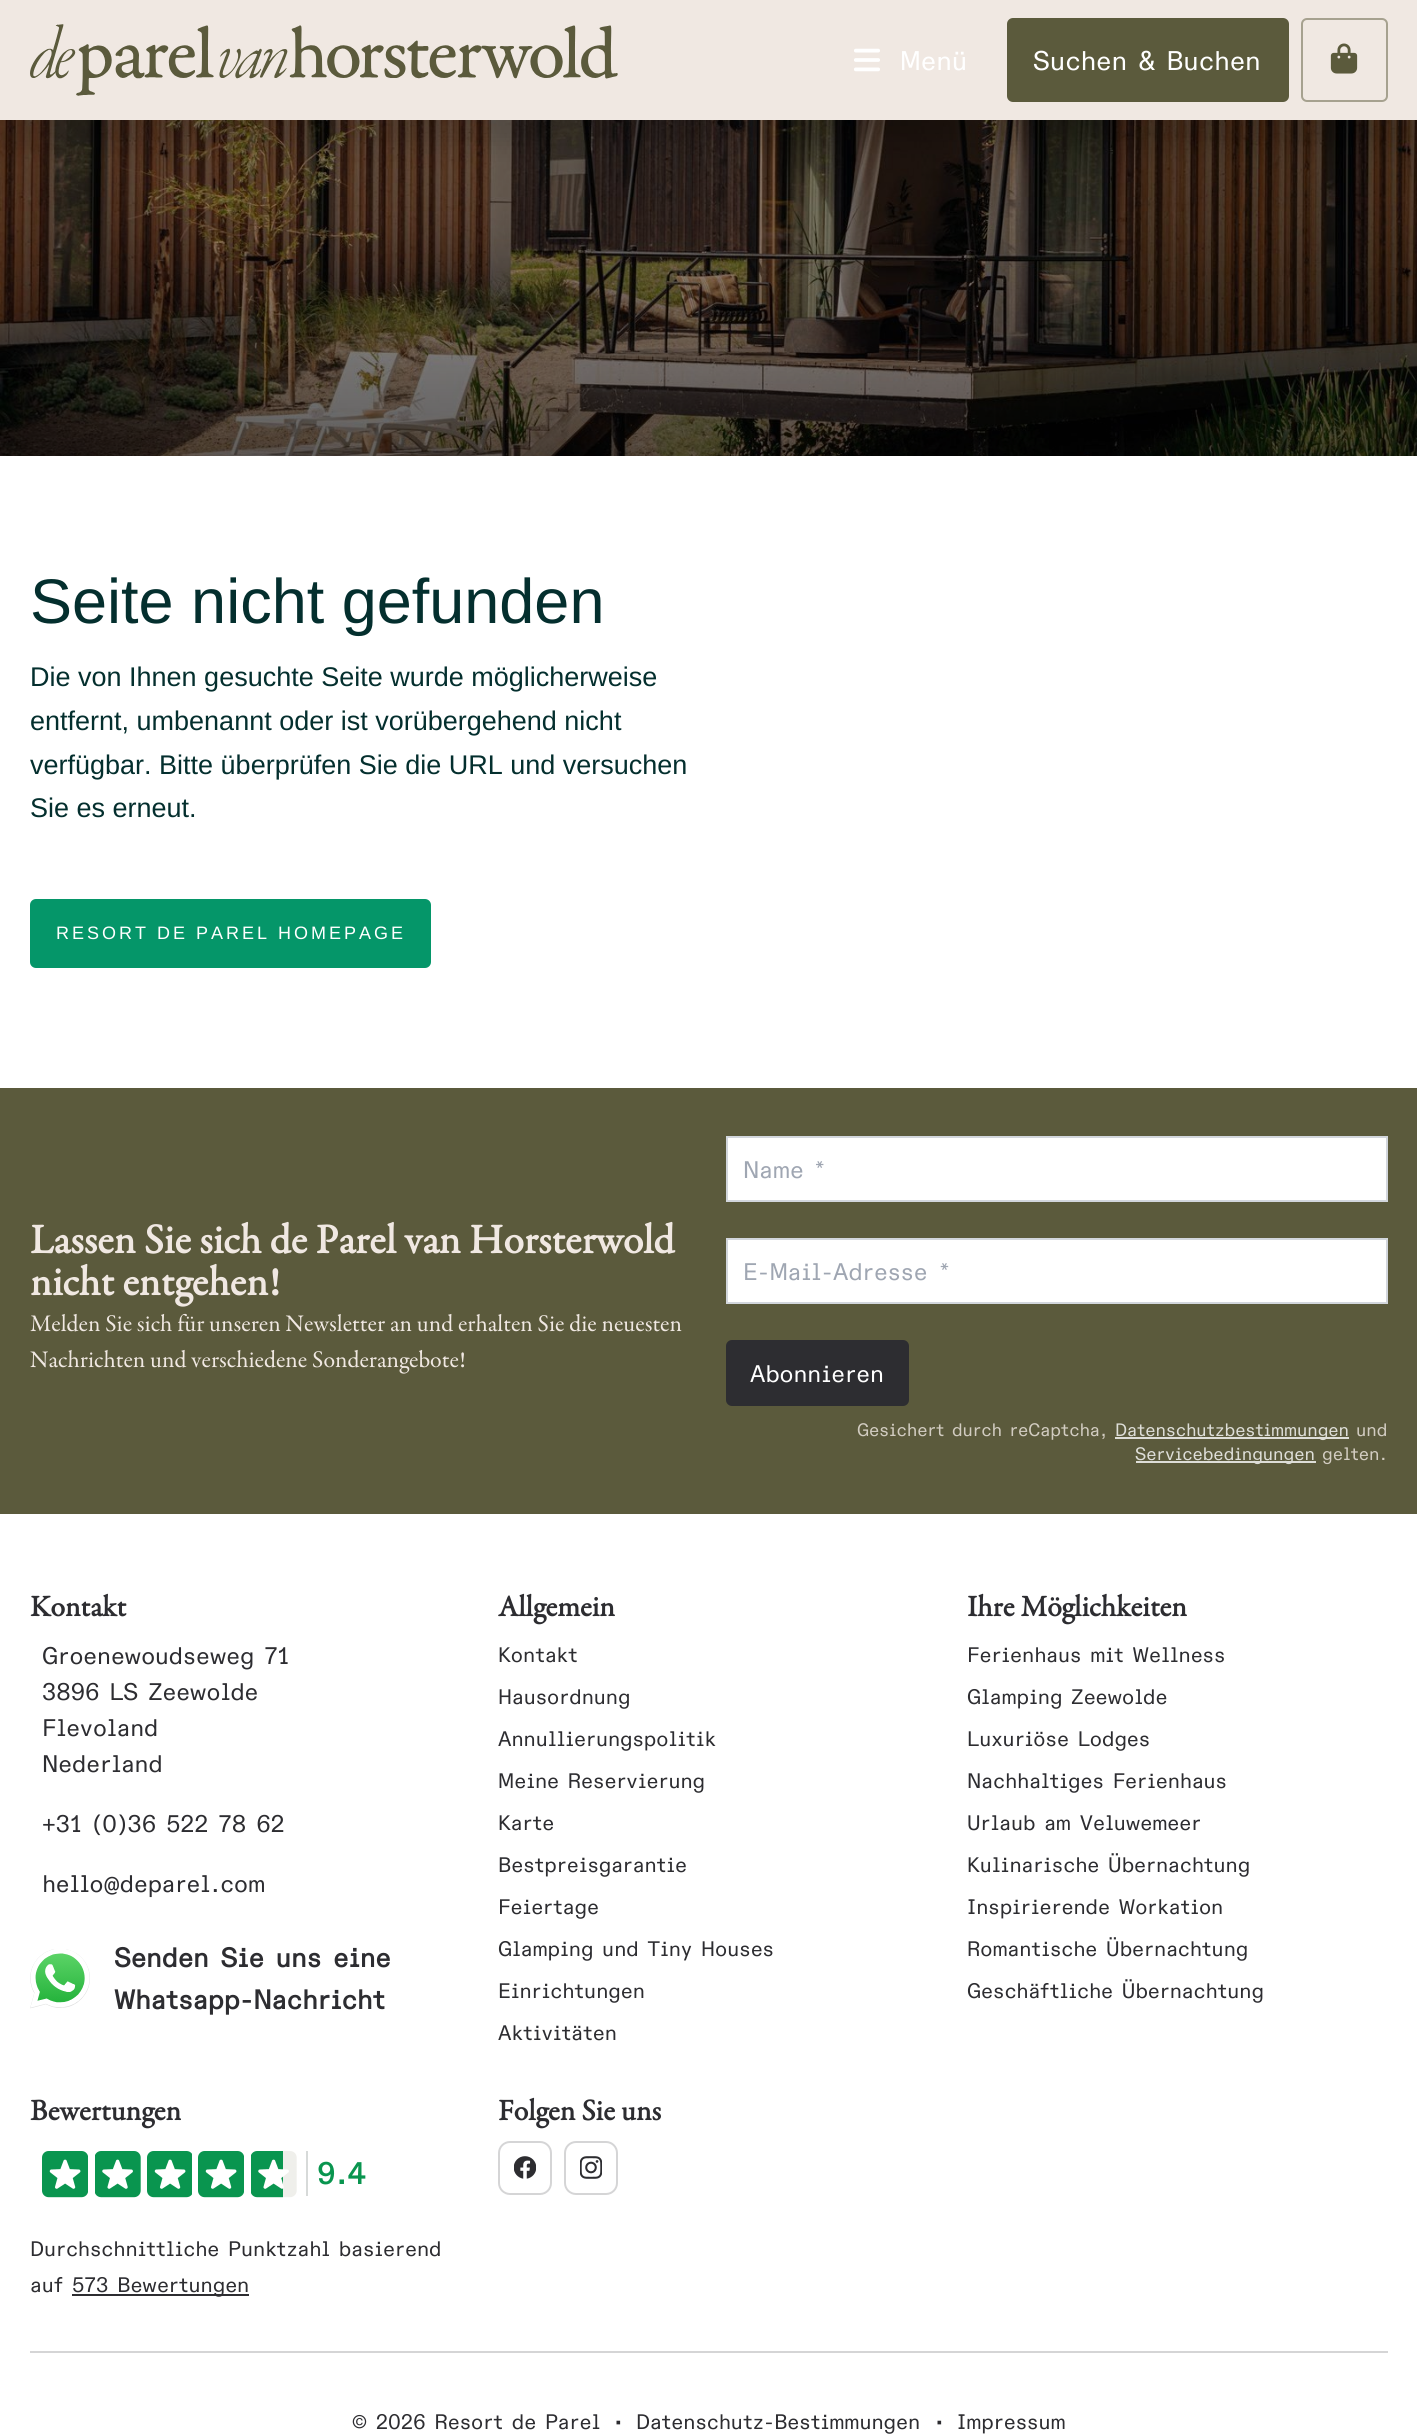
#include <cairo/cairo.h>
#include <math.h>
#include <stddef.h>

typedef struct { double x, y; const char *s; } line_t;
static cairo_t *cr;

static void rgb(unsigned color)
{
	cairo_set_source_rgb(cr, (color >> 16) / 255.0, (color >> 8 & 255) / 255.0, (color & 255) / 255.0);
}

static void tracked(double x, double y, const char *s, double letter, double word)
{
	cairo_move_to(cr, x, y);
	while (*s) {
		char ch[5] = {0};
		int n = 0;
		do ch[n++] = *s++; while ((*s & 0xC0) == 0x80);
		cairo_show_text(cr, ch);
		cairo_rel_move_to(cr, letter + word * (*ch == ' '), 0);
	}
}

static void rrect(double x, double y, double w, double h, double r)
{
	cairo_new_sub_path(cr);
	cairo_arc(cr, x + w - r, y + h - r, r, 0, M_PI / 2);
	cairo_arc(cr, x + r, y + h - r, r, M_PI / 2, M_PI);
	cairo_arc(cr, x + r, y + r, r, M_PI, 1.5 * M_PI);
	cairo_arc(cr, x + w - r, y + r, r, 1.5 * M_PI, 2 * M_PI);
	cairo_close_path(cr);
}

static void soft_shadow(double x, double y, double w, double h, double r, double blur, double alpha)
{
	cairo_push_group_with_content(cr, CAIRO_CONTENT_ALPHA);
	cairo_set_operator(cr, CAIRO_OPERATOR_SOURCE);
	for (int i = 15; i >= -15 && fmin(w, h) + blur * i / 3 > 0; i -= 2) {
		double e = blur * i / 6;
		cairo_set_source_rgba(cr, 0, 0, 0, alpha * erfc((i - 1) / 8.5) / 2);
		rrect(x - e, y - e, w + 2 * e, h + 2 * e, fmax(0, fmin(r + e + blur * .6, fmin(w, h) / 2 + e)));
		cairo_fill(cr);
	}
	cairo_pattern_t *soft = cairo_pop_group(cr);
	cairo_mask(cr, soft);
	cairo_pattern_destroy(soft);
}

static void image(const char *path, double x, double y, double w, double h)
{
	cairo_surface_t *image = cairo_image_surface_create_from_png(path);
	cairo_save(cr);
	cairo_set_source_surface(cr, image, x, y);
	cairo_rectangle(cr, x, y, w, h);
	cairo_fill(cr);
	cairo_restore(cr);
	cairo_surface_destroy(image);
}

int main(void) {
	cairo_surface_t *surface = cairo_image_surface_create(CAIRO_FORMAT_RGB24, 1417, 2435);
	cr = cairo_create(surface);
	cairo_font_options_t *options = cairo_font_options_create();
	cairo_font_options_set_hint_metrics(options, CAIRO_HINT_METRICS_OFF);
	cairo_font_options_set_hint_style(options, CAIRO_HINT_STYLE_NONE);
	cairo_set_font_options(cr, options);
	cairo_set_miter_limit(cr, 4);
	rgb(0xffffff);
	cairo_paint(cr);
	image("img/4.png", 0, 120, 1417, 336);
	rgb(0x000000);
	soft_shadow(0, 24, 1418, 120, 0, 12, 0.15);
	rgb(0xf0e8e2);
	cairo_rectangle(cr, 0, 0, 1417, 120);
	cairo_fill(cr);
	image("img/1.png", 30, 24, 588, 72);
	image("img/2.png", 854, 48, 26, 24);
	rgb(0x5b5a3c);
	rrect(1007, 18, 282, 84, 6);
	cairo_fill(cr);
	rrect(1302, 19, 85, 82, 5);
	rgb(0xa6a18f);
	cairo_stroke(cr);
	image("img/3.png", 1330, 43, 28, 31);
	rgb(0x059669);
	rrect(31, 900, 399, 67, 5);
	cairo_fill_preserve(cr);
	cairo_stroke(cr);
	rgb(0x5b5a3c);
	cairo_rectangle(cr, 0, 1088, 1417, 426);
	cairo_fill(cr);
	rgb(0xffffff);
	cairo_rectangle(cr, 727, 1137, 660, 64);
	cairo_fill_preserve(cr);
	rgb(0xd2d6dc);
	cairo_stroke(cr);
	rgb(0xffffff);
	cairo_rectangle(cr, 727, 1239, 660, 64);
	cairo_fill_preserve(cr);
	rgb(0xd2d6dc);
	cairo_stroke(cr);
	rgb(0x2d2d31);
	rrect(726, 1340, 183, 66, 6);
	cairo_fill(cr);
	rgb(0xdeded8);
	cairo_rectangle(cr, 1115, 1437, 234, 2);
	cairo_fill(cr);
	cairo_rectangle(cr, 1136, 1461, 180, 2);
	cairo_fill(cr);
	image("img/5.png", 30, 1949, 60, 60);
	image("img/6.png", 42, 2151, 46, 47);
	image("img/7.png", 95, 2151, 46, 47);
	image("img/8.png", 147, 2151, 45, 47);
	image("img/6.png", 198, 2151, 46, 47);
	image("img/9.png", 251, 2151, 46, 47);
	rgb(0xd7dad9);
	cairo_rectangle(cr, 306, 2151, 2, 45);
	cairo_fill(cr);
	rgb(0x2d2d31);
	cairo_rectangle(cr, 72, 2294, 177, 2);
	cairo_fill(cr);
	rrect(499, 2142, 52, 52, 11);
	rgb(0xd5d5d6);
	cairo_stroke(cr);
	image("img/10.png", 514, 2156, 22, 23);
	rrect(565, 2142, 52, 52, 11);
	cairo_stroke(cr);
	image("img/11.png", 580, 2156, 22, 23);
	cairo_rectangle(cr, 30, 2351, 1358, 2);
	cairo_fill(cr);
	cairo_select_font_face(cr, "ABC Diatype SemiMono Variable", CAIRO_FONT_SLANT_NORMAL, CAIRO_FONT_WEIGHT_NORMAL);
	cairo_set_font_size(cr, 27);
	rgb(0xffffff);
	cairo_move_to(cr, 900, 70);
	cairo_show_text(cr, "Menü");
	cairo_move_to(cr, 1033, 70);
	cairo_show_text(cr, "Suchen & Buchen");
	cairo_select_font_face(cr, "Liberation Sans", CAIRO_FONT_SLANT_NORMAL, CAIRO_FONT_WEIGHT_NORMAL);
	cairo_set_font_size(cr, 63);
	rgb(0x042f2e);
	cairo_move_to(cr, 30, 623);
	cairo_show_text(cr, "Seite nicht gefunden");
	cairo_set_font_size(cr, 27);
	{
		static const line_t items[] = {
			{30, 686, "Die von Ihnen gesuchte Seite wurde möglicherweise"},
			{30, 730, "entfernt, umbenannt oder ist vorübergehend nicht"},
			{30, 774, "verfügbar. Bitte überprüfen Sie die URL und versuchen"},
			{30, 817, "Sie es erneut."},
		};
		for (size_t i = 0; i < sizeof items / sizeof *items; i++) {
			cairo_move_to(cr, items[i].x, items[i].y);
			cairo_show_text(cr, items[i].s);
		}
	}
	cairo_set_font_size(cr, 18);
	rgb(0xffffff);
	tracked(56, 939, "RESORT DE PAREL HOMEPAGE", 3, 0);
	cairo_select_font_face(cr, "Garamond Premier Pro", CAIRO_FONT_SLANT_NORMAL, CAIRO_FONT_WEIGHT_BOLD);
	cairo_set_font_size(cr, 42);
	rgb(0xf0e8e2);
	cairo_move_to(cr, 30, 1253);
	cairo_show_text(cr, "Lassen Sie sich de Parel van Horsterwold");
	cairo_move_to(cr, 30, 1295);
	cairo_show_text(cr, "nicht entgehen!");
	cairo_select_font_face(cr, "Garamond Premier Pro", CAIRO_FONT_SLANT_NORMAL, CAIRO_FONT_WEIGHT_NORMAL);
	cairo_set_font_size(cr, 24);
	cairo_move_to(cr, 30, 1331);
	cairo_show_text(cr, "Melden Sie sich für unseren Newsletter an und erhalten Sie die neuesten");
	cairo_move_to(cr, 30, 1367);
	cairo_show_text(cr, "Nachrichten und verschiedene Sonderangebote!");
	cairo_select_font_face(cr, "ABC Diatype SemiMono Variable", CAIRO_FONT_SLANT_NORMAL, CAIRO_FONT_WEIGHT_NORMAL);
	rgb(0x9fa6b2);
	cairo_move_to(cr, 743, 1178);
	cairo_show_text(cr, "Name *");
	tracked(743, 1280, "E-Mail-Adresse *", 0, 1);
	rgb(0xffffff);
	cairo_move_to(cr, 750, 1382);
	cairo_show_text(cr, "Abonnieren");
	cairo_set_font_size(cr, 18);
	rgb(0xd2ccc1);
	cairo_move_to(cr, 857, 1436);
	cairo_show_text(cr, "Gesichert durch reCaptcha,");
	rgb(0xdeded8);
	cairo_move_to(cr, 1115, 1436);
	cairo_show_text(cr, "Datenschutzbestimmungen");
	rgb(0xd2ccc1);
	cairo_move_to(cr, 1356, 1436);
	cairo_show_text(cr, "und");
	rgb(0xdeded8);
	cairo_move_to(cr, 1135, 1460);
	cairo_show_text(cr, "Servicebedingungen");
	rgb(0xd2ccc1);
	cairo_move_to(cr, 1322, 1460);
	cairo_show_text(cr, "gelten.");
	cairo_select_font_face(cr, "Garamond Premier Pro", CAIRO_FONT_SLANT_NORMAL, CAIRO_FONT_WEIGHT_BOLD);
	cairo_set_font_size(cr, 30);
	rgb(0x2d2d31);
	cairo_move_to(cr, 30, 1616);
	cairo_show_text(cr, "Kontakt");
	cairo_select_font_face(cr, "ABC Diatype SemiMono Variable", CAIRO_FONT_SLANT_NORMAL, CAIRO_FONT_WEIGHT_NORMAL);
	cairo_set_font_size(cr, 24);
	{
		static const line_t items[] = {
			{42, 1664, "Groenewoudseweg 71"},
			{42, 1700, "3896 LS Zeewolde"},
			{42, 1736, "Flevoland"},
			{42, 1772, "Nederland"},
			{42, 1832, "+31 (0)36 522 78 62"},
			{42, 1892, "hello@deparel.com"},
		};
		for (size_t i = 0; i < sizeof items / sizeof *items; i++) {
			cairo_move_to(cr, items[i].x, items[i].y);
			cairo_show_text(cr, items[i].s);
		}
	}
	cairo_select_font_face(cr, "ABC Diatype SemiMono Variable", CAIRO_FONT_SLANT_NORMAL, CAIRO_FONT_WEIGHT_BOLD);
	cairo_set_font_size(cr, 27);
	tracked(114, 1967, "Senden Sie uns eine", 0, 0.5);
	cairo_move_to(cr, 114, 2009);
	cairo_show_text(cr, "Whatsapp-Nachricht");
	cairo_select_font_face(cr, "Garamond Premier Pro", CAIRO_FONT_SLANT_NORMAL, CAIRO_FONT_WEIGHT_BOLD);
	cairo_set_font_size(cr, 30);
	cairo_move_to(cr, 498, 1616);
	cairo_show_text(cr, "Allgemein");
	cairo_select_font_face(cr, "ABC Diatype SemiMono Variable", CAIRO_FONT_SLANT_NORMAL, CAIRO_FONT_WEIGHT_NORMAL);
	cairo_set_font_size(cr, 21);
	{
		static const line_t items[] = {
			{498, 1662, "Kontakt"},
			{498, 1704, "Hausordnung"},
			{498, 1746, "Annullierungspolitik"},
			{498, 1788, "Meine Reservierung"},
			{498, 1830, "Karte"},
			{498, 1872, "Bestpreisgarantie"},
			{498, 1914, "Feiertage"},
			{498, 1956, "Glamping und Tiny Houses"},
			{498, 1998, "Einrichtungen"},
			{498, 2040, "Aktivitäten"},
		};
		for (size_t i = 0; i < sizeof items / sizeof *items; i++) {
			cairo_move_to(cr, items[i].x, items[i].y);
			cairo_show_text(cr, items[i].s);
		}
	}
	cairo_select_font_face(cr, "Garamond Premier Pro", CAIRO_FONT_SLANT_NORMAL, CAIRO_FONT_WEIGHT_BOLD);
	cairo_set_font_size(cr, 30);
	cairo_move_to(cr, 967, 1616);
	cairo_show_text(cr, "Ihre Möglichkeiten");
	cairo_select_font_face(cr, "ABC Diatype SemiMono Variable", CAIRO_FONT_SLANT_NORMAL, CAIRO_FONT_WEIGHT_NORMAL);
	cairo_set_font_size(cr, 21);
	{
		static const line_t items[] = {
			{967, 1662, "Ferienhaus mit Wellness"},
			{967, 1704, "Glamping Zeewolde"},
			{967, 1746, "Luxuriöse Lodges"},
			{967, 1788, "Nachhaltiges Ferienhaus"},
			{967, 1830, "Urlaub am Veluwemeer"},
			{967, 1872, "Kulinarische Übernachtung"},
			{967, 1914, "Inspirierende Workation"},
			{967, 1956, "Romantische Übernachtung"},
			{967, 1998, "Geschäftliche Übernachtung"},
		};
		for (size_t i = 0; i < sizeof items / sizeof *items; i++) {
			cairo_move_to(cr, items[i].x, items[i].y);
			cairo_show_text(cr, items[i].s);
		}
	}
	cairo_select_font_face(cr, "Garamond Premier Pro", CAIRO_FONT_SLANT_NORMAL, CAIRO_FONT_WEIGHT_BOLD);
	cairo_set_font_size(cr, 30);
	cairo_move_to(cr, 30, 2120);
	cairo_show_text(cr, "Bewertungen");
	cairo_select_font_face(cr, "ABC Diatype SemiMono Variable", CAIRO_FONT_SLANT_NORMAL, CAIRO_FONT_WEIGHT_BOLD);
	rgb(0x09954f);
	cairo_move_to(cr, 317, 2184);
	cairo_show_text(cr, "9.4");
	cairo_select_font_face(cr, "ABC Diatype SemiMono Variable", CAIRO_FONT_SLANT_NORMAL, CAIRO_FONT_WEIGHT_NORMAL);
	cairo_set_font_size(cr, 21);
	rgb(0x2d2d31);
	{
		static const line_t items[] = {
			{30, 2256, "Durchschnittliche Punktzahl basierend"},
			{30, 2292, "auf"},
			{72, 2292, "573 Bewertungen"},
		};
		for (size_t i = 0; i < sizeof items / sizeof *items; i++) {
			cairo_move_to(cr, items[i].x, items[i].y);
			cairo_show_text(cr, items[i].s);
		}
	}
	cairo_select_font_face(cr, "Garamond Premier Pro", CAIRO_FONT_SLANT_NORMAL, CAIRO_FONT_WEIGHT_BOLD);
	cairo_set_font_size(cr, 30);
	cairo_move_to(cr, 498, 2120);
	cairo_show_text(cr, "Folgen Sie uns");
	cairo_select_font_face(cr, "ABC Diatype SemiMono Variable", CAIRO_FONT_SLANT_NORMAL, CAIRO_FONT_WEIGHT_NORMAL);
	cairo_set_font_size(cr, 21);
	cairo_move_to(cr, 352, 2429);
	cairo_show_text(cr, "© 2026 Resort de Parel");
	cairo_set_font_size(cr, 30);
	cairo_move_to(cr, 612, 2432);
	cairo_show_text(cr, "·");
	cairo_set_font_size(cr, 21);
	cairo_move_to(cr, 636, 2429);
	cairo_show_text(cr, "Datenschutz-Bestimmungen");
	cairo_set_font_size(cr, 30);
	cairo_move_to(cr, 933, 2432);
	cairo_show_text(cr, "·");
	cairo_set_font_size(cr, 21);
	cairo_move_to(cr, 957, 2429);
	cairo_show_text(cr, "Impressum");
	cairo_surface_write_to_png(surface, "page.png");
	cairo_font_options_destroy(options);
	cairo_destroy(cr);
	cairo_surface_destroy(surface);
	return 0;
}
